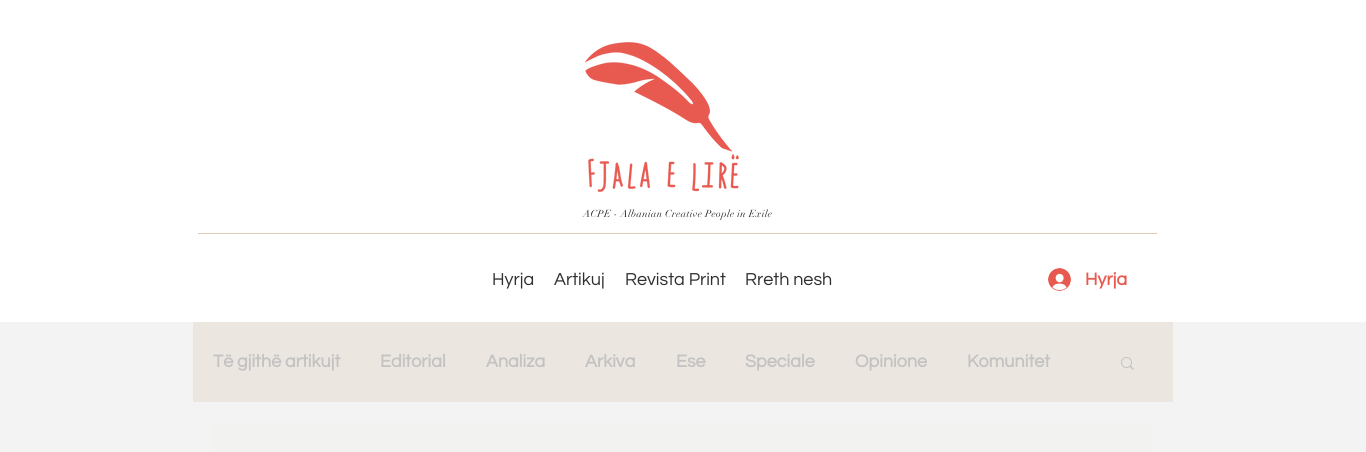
#include <cairo/cairo.h>
#include <math.h>
#include <stddef.h>

typedef struct { double x, y; const char *s; } line_t;
static cairo_t *cr;

static void rgb(unsigned color)
{
	cairo_set_source_rgb(cr, (color >> 16) / 255.0, (color >> 8 & 255) / 255.0, (color & 255) / 255.0);
}

static void tracked(double x, double y, const char *s, double letter, double word)
{
	cairo_move_to(cr, x, y);
	while (*s) {
		char ch[5] = {0};
		int n = 0;
		do ch[n++] = *s++; while ((*s & 0xC0) == 0x80);
		cairo_show_text(cr, ch);
		cairo_rel_move_to(cr, letter + word * (*ch == ' '), 0);
	}
}

static void image(const char *path, double x, double y, double w, double h)
{
	cairo_surface_t *image = cairo_image_surface_create_from_png(path);
	cairo_save(cr);
	cairo_set_source_surface(cr, image, x, y);
	cairo_rectangle(cr, x, y, w, h);
	cairo_fill(cr);
	cairo_restore(cr);
	cairo_surface_destroy(image);
}

int main(void) {
	cairo_surface_t *surface = cairo_image_surface_create(CAIRO_FORMAT_RGB24, 1366, 452);
	cr = cairo_create(surface);
	cairo_font_options_t *options = cairo_font_options_create();
	cairo_font_options_set_hint_metrics(options, CAIRO_HINT_METRICS_OFF);
	cairo_font_options_set_hint_style(options, CAIRO_HINT_STYLE_NONE);
	cairo_set_font_options(cr, options);
	cairo_set_miter_limit(cr, 4);
	rgb(0xf3f3f3);
	cairo_paint(cr);
	rgb(0xffffff);
	cairo_rectangle(cr, 0, 0, 1366, 322);
	cairo_fill(cr);
	image("img/1.png", 585, 42, 154, 150);
	rgb(0xdeccb3);
	cairo_rectangle(cr, 198, 233, 959, 1);
	cairo_fill(cr);
	image("img/2.png", 1048, 268, 23, 23);
	rgb(0xebe6e0);
	cairo_rectangle(cr, 193, 322, 980, 80);
	cairo_fill(cr);
	image("img/3.png", 1121, 357, 13, 13);
	rgb(0xf2f2f0);
	cairo_rectangle(cr, 213, 422, 940, 30);
	cairo_fill(cr);
	cairo_select_font_face(cr, "didot", CAIRO_FONT_SLANT_NORMAL, CAIRO_FONT_WEIGHT_NORMAL);
	cairo_set_font_size(cr, 10);
	rgb(0x222222);
	tracked(583, 217, "ACPE - Albanian Creative People in Exile", 0.3, 0);
	cairo_select_font_face(cr, "Questrial", CAIRO_FONT_SLANT_NORMAL, CAIRO_FONT_WEIGHT_NORMAL);
	cairo_set_font_size(cr, 18);
	rgb(0x303030);
	{
		static const line_t items[] = {
			{492, 285, "Hyrja"},
			{554, 285, "Artikuj"},
			{625, 285, "Revista Print"},
			{745, 285, "Rreth nesh"},
		};
		for (size_t i = 0; i < sizeof items / sizeof *items; i++) {
			cairo_move_to(cr, items[i].x, items[i].y);
			cairo_show_text(cr, items[i].s);
		}
	}
	cairo_select_font_face(cr, "Questrial", CAIRO_FONT_SLANT_NORMAL, CAIRO_FONT_WEIGHT_BOLD);
	rgb(0xe85a4f);
	cairo_move_to(cr, 1085, 285);
	cairo_show_text(cr, "Hyrja");
	rgb(0xc3c3c3);
	{
		static const line_t items[] = {
			{213, 367, "Të gjithë artikujt"},
			{380, 367, "Editorial"},
			{486, 367, "Analiza"},
			{585, 367, "Arkiva"},
			{676, 367, "Ese"},
			{745, 367, "Speciale"},
			{855, 367, "Opinione"},
			{967, 367, "Komunitet"},
		};
		for (size_t i = 0; i < sizeof items / sizeof *items; i++) {
			cairo_move_to(cr, items[i].x, items[i].y);
			cairo_show_text(cr, items[i].s);
		}
	}
	cairo_surface_write_to_png(surface, "page.png");
	cairo_font_options_destroy(options);
	cairo_destroy(cr);
	cairo_surface_destroy(surface);
	return 0;
}
